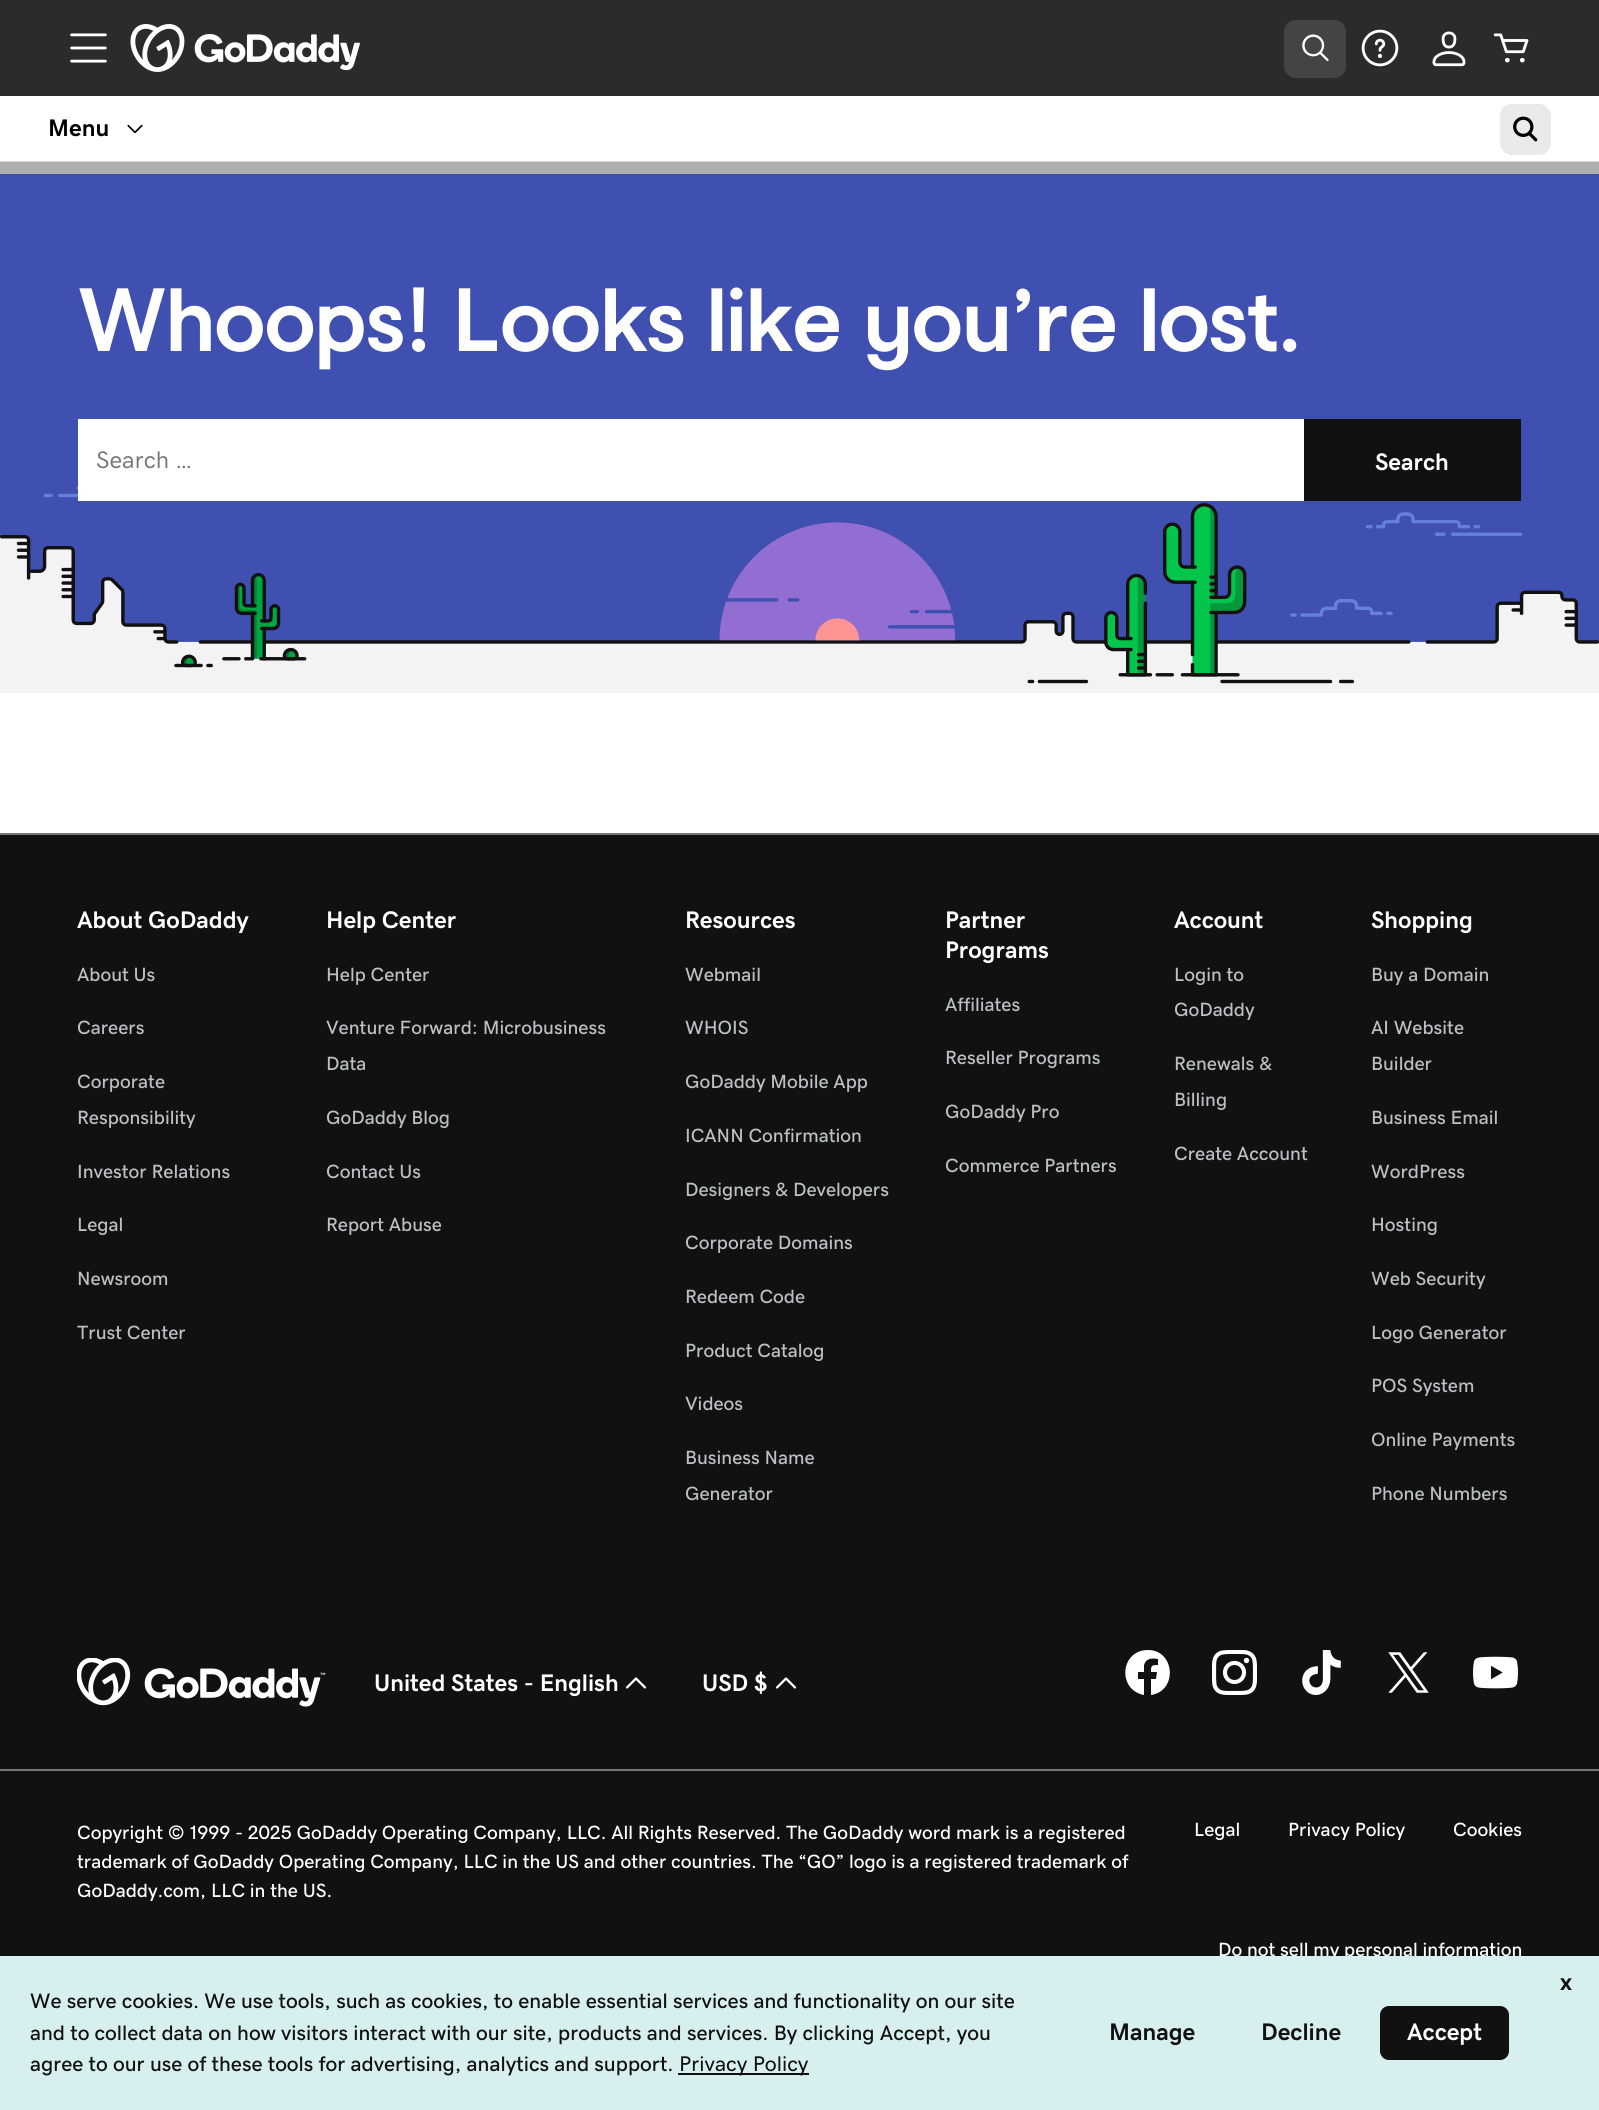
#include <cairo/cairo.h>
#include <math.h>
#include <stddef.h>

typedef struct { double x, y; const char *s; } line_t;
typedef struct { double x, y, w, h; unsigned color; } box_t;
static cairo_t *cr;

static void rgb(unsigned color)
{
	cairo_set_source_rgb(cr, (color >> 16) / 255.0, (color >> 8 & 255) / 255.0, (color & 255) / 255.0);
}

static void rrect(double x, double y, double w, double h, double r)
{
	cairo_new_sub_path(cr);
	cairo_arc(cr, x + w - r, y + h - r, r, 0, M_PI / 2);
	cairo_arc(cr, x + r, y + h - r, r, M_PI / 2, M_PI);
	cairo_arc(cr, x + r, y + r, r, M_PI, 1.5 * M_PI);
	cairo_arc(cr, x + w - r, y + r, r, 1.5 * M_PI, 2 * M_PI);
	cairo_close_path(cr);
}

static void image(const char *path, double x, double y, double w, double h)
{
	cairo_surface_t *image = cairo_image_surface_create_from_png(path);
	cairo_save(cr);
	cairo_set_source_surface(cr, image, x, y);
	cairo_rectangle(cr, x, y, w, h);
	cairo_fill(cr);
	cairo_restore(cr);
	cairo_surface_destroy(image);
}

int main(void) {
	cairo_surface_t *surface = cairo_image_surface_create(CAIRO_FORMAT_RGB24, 1599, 2110);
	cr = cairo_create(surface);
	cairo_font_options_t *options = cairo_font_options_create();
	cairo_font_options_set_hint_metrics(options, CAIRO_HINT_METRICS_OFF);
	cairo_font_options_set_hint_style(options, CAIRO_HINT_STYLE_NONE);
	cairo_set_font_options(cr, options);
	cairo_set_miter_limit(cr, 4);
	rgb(0xffffff);
	cairo_paint(cr);
	rgb(0x2b2b2b);
	cairo_rectangle(cr, 0, 0, 1599, 96);
	cairo_fill(cr);
	image("img/1.png", 70, 33, 37, 30);
	image("img/2.png", 130, 24, 230, 48);
	rgb(0x444444);
	rrect(1284, 20, 62, 58, 12);
	cairo_fill(cr);
	image("img/3.png", 1302, 34, 27, 28);
	image("img/4.png", 1361, 29, 38, 38);
	image("img/5.png", 1432, 31, 34, 36);
	image("img/6.png", 1493, 33, 36, 30);
	rgb(0xd6d6d6);
	cairo_rectangle(cr, 0, 161, 1599, 1);
	cairo_fill(cr);
	image("img/7.png", 127, 124, 16, 10);
	rgb(0xe8eaeb);
	rrect(1500, 104, 51, 51, 12);
	cairo_fill(cr);
	image("img/8.png", 1513, 116, 25, 26);
	rgb(0xafafaf);
	cairo_rectangle(cr, 0, 162, 1599, 12);
	cairo_fill(cr);
	image("img/9.png", 0, 174, 1599, 519);
	{
		static const box_t items[] = {
			{78, 419, 1226, 82, 0xffffff},
			{1304, 419, 217, 82, 0x111111},
			{0, 835, 1599, 934, 0x111111},
			{0, 833, 1599, 2, 0x767676},
		};
		for (size_t i = 0; i < sizeof items / sizeof *items; i++) {
			rgb(items[i].color);
			cairo_rectangle(cr, items[i].x, items[i].y, items[i].w, items[i].h);
			cairo_fill(cr);
		}
	}
	image("img/10.png", 77, 1658, 249, 49);
	image("img/11.png", 625, 1677, 22, 12);
	image("img/11.png", 775, 1677, 22, 12);
	rgb(0xffffff);
	cairo_set_fill_rule(cr, CAIRO_FILL_RULE_EVEN_ODD);
	cairo_new_path(cr);
	cairo_move_to(cr, 1148, 1650);
	cairo_curve_to(cr, 1120, 1650, 1117, 1690, 1144, 1695);
	cairo_line_to(cr, 1144, 1679);
	cairo_line_to(cr, 1138, 1679);
	cairo_line_to(cr, 1138, 1672);
	cairo_line_to(cr, 1144, 1672);
	cairo_line_to(cr, 1144, 1665);
	cairo_curve_to(cr, 1146, 1658, 1152, 1658, 1158, 1659);
	cairo_line_to(cr, 1158, 1665);
	cairo_curve_to(cr, 1151, 1665, 1151, 1666, 1151, 1672);
	cairo_line_to(cr, 1157, 1672);
	cairo_line_to(cr, 1156, 1679);
	cairo_line_to(cr, 1151, 1679);
	cairo_line_to(cr, 1151, 1695);
	cairo_curve_to(cr, 1178, 1691, 1175, 1650, 1148, 1650);
	cairo_close_path(cr);
	cairo_fill(cr);
	image("img/12.png", 1212, 1650, 45, 45);
	image("img/13.png", 1302, 1650, 39, 45);
	image("img/14.png", 1388, 1652, 41, 41);
	image("img/15.png", 1473, 1656, 45, 33);
	rgb(0x111111);
	cairo_rectangle(cr, 0, 1771, 1599, 185);
	cairo_fill(cr);
	rgb(0x767676);
	cairo_rectangle(cr, 0, 1769, 1599, 2);
	cairo_fill(cr);
	cairo_select_font_face(cr, "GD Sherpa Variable", CAIRO_FONT_SLANT_NORMAL, CAIRO_FONT_WEIGHT_BOLD);
	cairo_set_font_size(cr, 24);
	rgb(0x000000);
	cairo_move_to(cr, 48, 136);
	cairo_show_text(cr, "Menu");
	cairo_select_font_face(cr, "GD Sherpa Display", CAIRO_FONT_SLANT_NORMAL, CAIRO_FONT_WEIGHT_BOLD);
	cairo_set_font_size(cr, 90.8);
	rgb(0xffffff);
	cairo_move_to(cr, 78, 351);
	cairo_show_text(cr, "Whoops! Looks like you’re lost.");
	cairo_select_font_face(cr, "GD Sherpa Variable", CAIRO_FONT_SLANT_NORMAL, CAIRO_FONT_WEIGHT_NORMAL);
	cairo_set_font_size(cr, 24);
	rgb(0x767676);
	cairo_move_to(cr, 96, 468);
	cairo_show_text(cr, "Search …");
	cairo_select_font_face(cr, "GD Sherpa Variable ExtraBold", CAIRO_FONT_SLANT_NORMAL, CAIRO_FONT_WEIGHT_NORMAL);
	rgb(0xffffff);
	cairo_move_to(cr, 1375, 470);
	cairo_show_text(cr, "Search");
	cairo_move_to(cr, 77, 928);
	cairo_show_text(cr, "About GoDaddy");
	cairo_select_font_face(cr, "GD Sherpa Variable Medium", CAIRO_FONT_SLANT_NORMAL, CAIRO_FONT_WEIGHT_NORMAL);
	cairo_set_font_size(cr, 19.2);
	rgb(0xbac0c3);
	{
		static const line_t items[] = {
			{77, 981, "About Us"},
			{77, 1034, "Careers"},
			{77, 1088, "Corporate"},
			{77, 1124, "Responsibility"},
			{77, 1178, "Investor Relations"},
			{77, 1231, "Legal"},
			{77, 1285, "Newsroom"},
			{77, 1339, "Trust Center"},
		};
		for (size_t i = 0; i < sizeof items / sizeof *items; i++) {
			cairo_move_to(cr, items[i].x, items[i].y);
			cairo_show_text(cr, items[i].s);
		}
	}
	cairo_select_font_face(cr, "GD Sherpa Variable ExtraBold", CAIRO_FONT_SLANT_NORMAL, CAIRO_FONT_WEIGHT_NORMAL);
	cairo_set_font_size(cr, 24);
	rgb(0xffffff);
	cairo_move_to(cr, 326, 928);
	cairo_show_text(cr, "Help Center");
	cairo_select_font_face(cr, "GD Sherpa Variable Medium", CAIRO_FONT_SLANT_NORMAL, CAIRO_FONT_WEIGHT_NORMAL);
	cairo_set_font_size(cr, 19.2);
	rgb(0xbac0c3);
	{
		static const line_t items[] = {
			{326, 981, "Help Center"},
			{326, 1034, "Venture Forward: Microbusiness"},
			{326, 1070, "Data"},
			{326, 1124, "GoDaddy Blog"},
			{326, 1178, "Contact Us"},
			{326, 1231, "Report Abuse"},
		};
		for (size_t i = 0; i < sizeof items / sizeof *items; i++) {
			cairo_move_to(cr, items[i].x, items[i].y);
			cairo_show_text(cr, items[i].s);
		}
	}
	cairo_select_font_face(cr, "GD Sherpa Variable ExtraBold", CAIRO_FONT_SLANT_NORMAL, CAIRO_FONT_WEIGHT_NORMAL);
	cairo_set_font_size(cr, 24);
	rgb(0xffffff);
	cairo_move_to(cr, 685, 928);
	cairo_show_text(cr, "Resources");
	cairo_select_font_face(cr, "GD Sherpa Variable Medium", CAIRO_FONT_SLANT_NORMAL, CAIRO_FONT_WEIGHT_NORMAL);
	cairo_set_font_size(cr, 19.2);
	rgb(0xbac0c3);
	{
		static const line_t items[] = {
			{685, 981, "Webmail"},
			{685, 1034, "WHOIS"},
			{685, 1088, "GoDaddy Mobile App"},
			{685, 1142, "ICANN Confirmation"},
			{685, 1196, "Designers & Developers"},
			{685, 1249, "Corporate Domains"},
			{685, 1303, "Redeem Code"},
			{685, 1357, "Product Catalog"},
			{685, 1410, "Videos"},
			{685, 1464, "Business Name"},
			{685, 1500, "Generator"},
		};
		for (size_t i = 0; i < sizeof items / sizeof *items; i++) {
			cairo_move_to(cr, items[i].x, items[i].y);
			cairo_show_text(cr, items[i].s);
		}
	}
	cairo_select_font_face(cr, "GD Sherpa Variable ExtraBold", CAIRO_FONT_SLANT_NORMAL, CAIRO_FONT_WEIGHT_NORMAL);
	cairo_set_font_size(cr, 24);
	rgb(0xffffff);
	cairo_move_to(cr, 945, 928);
	cairo_show_text(cr, "Partner");
	cairo_move_to(cr, 945, 958);
	cairo_show_text(cr, "Programs");
	cairo_select_font_face(cr, "GD Sherpa Variable Medium", CAIRO_FONT_SLANT_NORMAL, CAIRO_FONT_WEIGHT_NORMAL);
	cairo_set_font_size(cr, 19.2);
	rgb(0xbac0c3);
	{
		static const line_t items[] = {
			{945, 1011, "Affiliates"},
			{945, 1064, "Reseller Programs"},
			{945, 1118, "GoDaddy Pro"},
			{945, 1172, "Commerce Partners"},
		};
		for (size_t i = 0; i < sizeof items / sizeof *items; i++) {
			cairo_move_to(cr, items[i].x, items[i].y);
			cairo_show_text(cr, items[i].s);
		}
	}
	cairo_select_font_face(cr, "GD Sherpa Variable ExtraBold", CAIRO_FONT_SLANT_NORMAL, CAIRO_FONT_WEIGHT_NORMAL);
	cairo_set_font_size(cr, 24);
	rgb(0xffffff);
	cairo_move_to(cr, 1174, 928);
	cairo_show_text(cr, "Account");
	cairo_select_font_face(cr, "GD Sherpa Variable Medium", CAIRO_FONT_SLANT_NORMAL, CAIRO_FONT_WEIGHT_NORMAL);
	cairo_set_font_size(cr, 19.2);
	rgb(0xbac0c3);
	{
		static const line_t items[] = {
			{1174, 981, "Login to"},
			{1174, 1016, "GoDaddy"},
			{1174, 1070, "Renewals &"},
			{1174, 1106, "Billing"},
			{1174, 1160, "Create Account"},
		};
		for (size_t i = 0; i < sizeof items / sizeof *items; i++) {
			cairo_move_to(cr, items[i].x, items[i].y);
			cairo_show_text(cr, items[i].s);
		}
	}
	cairo_select_font_face(cr, "GD Sherpa Variable ExtraBold", CAIRO_FONT_SLANT_NORMAL, CAIRO_FONT_WEIGHT_NORMAL);
	cairo_set_font_size(cr, 24);
	rgb(0xffffff);
	cairo_move_to(cr, 1371, 928);
	cairo_show_text(cr, "Shopping");
	cairo_select_font_face(cr, "GD Sherpa Variable Medium", CAIRO_FONT_SLANT_NORMAL, CAIRO_FONT_WEIGHT_NORMAL);
	cairo_set_font_size(cr, 19.2);
	rgb(0xbac0c3);
	{
		static const line_t items[] = {
			{1371, 981, "Buy a Domain"},
			{1371, 1034, "AI Website"},
			{1371, 1070, "Builder"},
			{1371, 1124, "Business Email"},
			{1371, 1178, "WordPress"},
			{1371, 1231, "Hosting"},
			{1371, 1285, "Web Security"},
			{1371, 1339, "Logo Generator"},
			{1371, 1392, "POS System"},
			{1371, 1446, "Online Payments"},
			{1371, 1500, "Phone Numbers"},
		};
		for (size_t i = 0; i < sizeof items / sizeof *items; i++) {
			cairo_move_to(cr, items[i].x, items[i].y);
			cairo_show_text(cr, items[i].s);
		}
	}
	cairo_select_font_face(cr, "GD Sherpa Variable", CAIRO_FONT_SLANT_NORMAL, CAIRO_FONT_WEIGHT_BOLD);
	cairo_set_font_size(cr, 24);
	rgb(0xffffff);
	cairo_move_to(cr, 374, 1691);
	cairo_show_text(cr, "United States - English");
	cairo_move_to(cr, 702, 1691);
	cairo_show_text(cr, "USD $");
	cairo_select_font_face(cr, "GD Sherpa Variable Medium", CAIRO_FONT_SLANT_NORMAL, CAIRO_FONT_WEIGHT_NORMAL);
	cairo_set_font_size(cr, 19.2);
	{
		static const line_t items[] = {
			{77, 1839, "Copyright © 1999 - 2025 GoDaddy Operating Company, LLC. All Rights Reserved. The GoDaddy word mark is a registered"},
			{77, 1868, "trademark of GoDaddy Operating Company, LLC in the US and other countries. The “GO” logo is a registered trademark of"},
			{77, 1897, "GoDaddy.com, LLC in the US."},
			{1194, 1836, "Legal"},
			{1288, 1836, "Privacy Policy"},
			{1453, 1836, "Cookies"},
			{1218, 1956, "Do not sell my personal information"},
		};
		for (size_t i = 0; i < sizeof items / sizeof *items; i++) {
			cairo_move_to(cr, items[i].x, items[i].y);
			cairo_show_text(cr, items[i].s);
		}
	}
	rgb(0xd8efef);
	cairo_rectangle(cr, 0, 1956, 1599, 154);
	cairo_fill(cr);
	cairo_select_font_face(cr, "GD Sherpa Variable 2", CAIRO_FONT_SLANT_NORMAL, CAIRO_FONT_WEIGHT_BOLD);
	cairo_set_font_size(cr, 24);
	rgb(0x111111);
	cairo_move_to(cr, 1560, 1990);
	cairo_show_text(cr, "x");
	cairo_select_font_face(cr, "GD Sherpa Variable Medium", CAIRO_FONT_SLANT_NORMAL, CAIRO_FONT_WEIGHT_NORMAL);
	cairo_set_font_size(cr, 21);
	{
		static const line_t items[] = {
			{30, 2008, "We serve cookies. We use tools, such as cookies, to enable essential services and functionality on our site"},
			{30, 2040, "and to collect data on how visitors interact with our site, products and services. By clicking Accept, you"},
			{30, 2071, "agree to our use of these tools for advertising, analytics and support."},
		};
		for (size_t i = 0; i < sizeof items / sizeof *items; i++) {
			cairo_move_to(cr, items[i].x, items[i].y);
			cairo_show_text(cr, items[i].s);
		}
	}
	cairo_rectangle(cr, 678, 2073, 131, 2);
	cairo_fill(cr);
	cairo_select_font_face(cr, "GD Sherpa Variable 2", CAIRO_FONT_SLANT_NORMAL, CAIRO_FONT_WEIGHT_NORMAL);
	cairo_set_font_size(cr, 21.25);
	cairo_move_to(cr, 679, 2071);
	cairo_show_text(cr, "Privacy Policy");
	cairo_select_font_face(cr, "GD Sherpa Variable 2", CAIRO_FONT_SLANT_NORMAL, CAIRO_FONT_WEIGHT_BOLD);
	cairo_set_font_size(cr, 24);
	cairo_move_to(cr, 1109, 2040);
	cairo_show_text(cr, "Manage");
	cairo_move_to(cr, 1261, 2040);
	cairo_show_text(cr, "Decline");
	rrect(1380, 2006, 129, 54, 9);
	cairo_fill(cr);
	rgb(0xffffff);
	cairo_move_to(cr, 1407, 2040);
	cairo_show_text(cr, "Accept");
	cairo_surface_write_to_png(surface, "page.png");
	cairo_font_options_destroy(options);
	cairo_destroy(cr);
	cairo_surface_destroy(surface);
	return 0;
}
